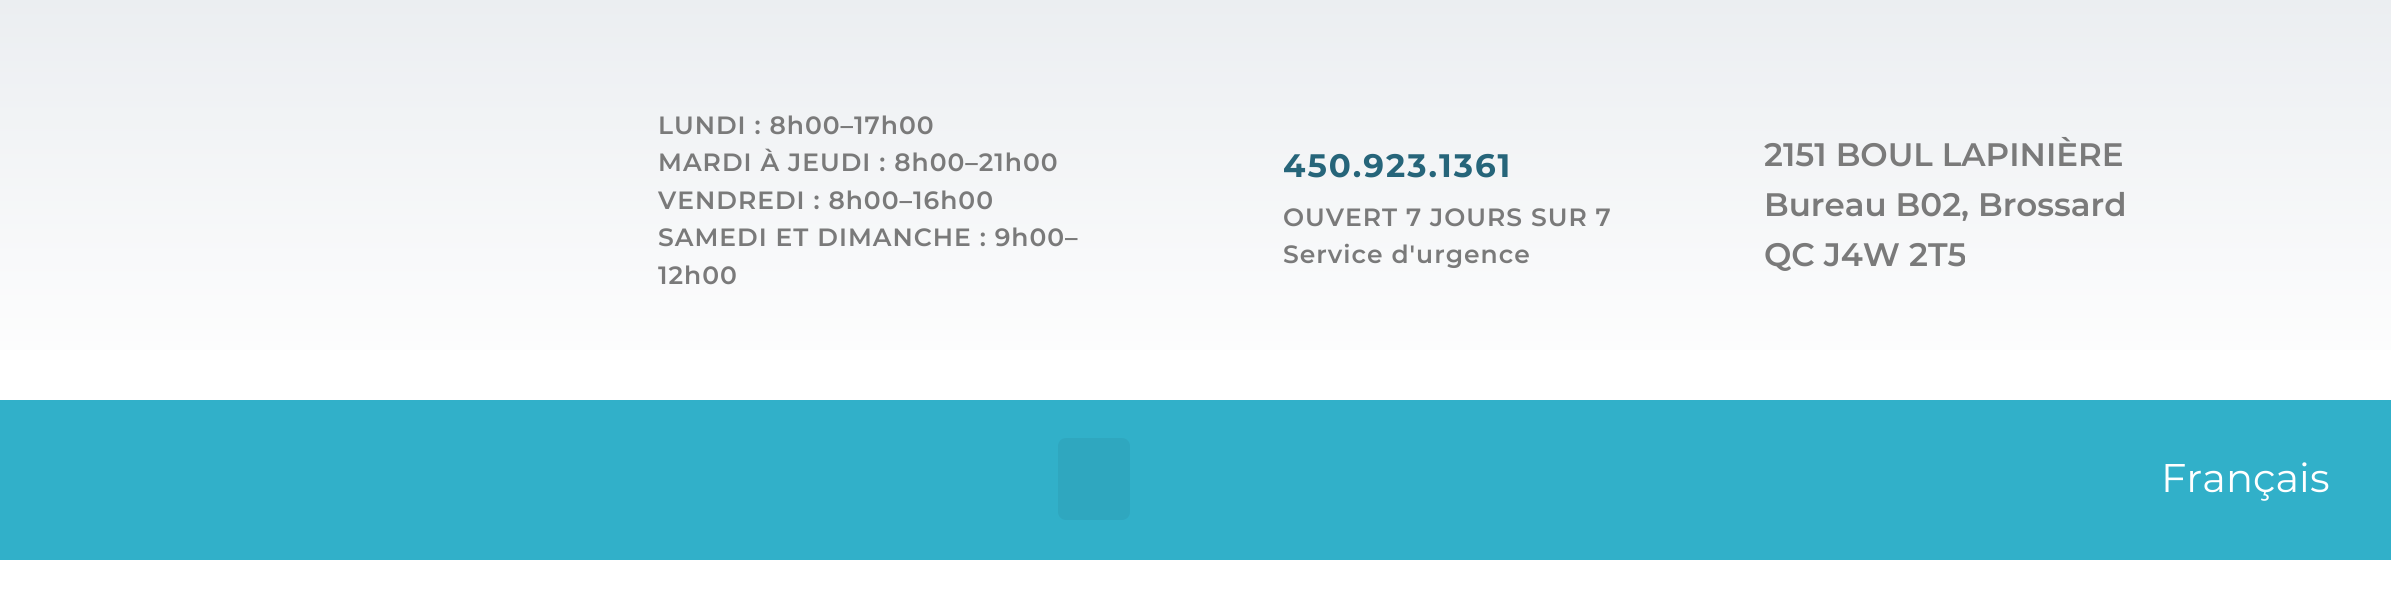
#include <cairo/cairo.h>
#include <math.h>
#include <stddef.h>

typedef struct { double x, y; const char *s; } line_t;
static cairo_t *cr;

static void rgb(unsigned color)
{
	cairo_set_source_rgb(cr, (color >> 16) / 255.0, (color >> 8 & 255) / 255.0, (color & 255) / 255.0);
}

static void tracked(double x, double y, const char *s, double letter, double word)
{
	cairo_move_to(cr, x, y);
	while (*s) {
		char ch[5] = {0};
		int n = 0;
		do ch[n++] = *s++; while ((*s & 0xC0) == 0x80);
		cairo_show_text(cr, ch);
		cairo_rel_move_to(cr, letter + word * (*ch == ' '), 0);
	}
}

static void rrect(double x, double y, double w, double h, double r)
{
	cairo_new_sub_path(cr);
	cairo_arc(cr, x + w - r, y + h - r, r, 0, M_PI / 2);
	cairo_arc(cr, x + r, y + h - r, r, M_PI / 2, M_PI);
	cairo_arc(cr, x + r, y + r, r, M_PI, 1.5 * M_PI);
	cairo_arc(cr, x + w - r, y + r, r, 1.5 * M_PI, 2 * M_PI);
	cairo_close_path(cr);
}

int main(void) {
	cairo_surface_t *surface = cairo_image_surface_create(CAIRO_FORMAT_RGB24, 2391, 602);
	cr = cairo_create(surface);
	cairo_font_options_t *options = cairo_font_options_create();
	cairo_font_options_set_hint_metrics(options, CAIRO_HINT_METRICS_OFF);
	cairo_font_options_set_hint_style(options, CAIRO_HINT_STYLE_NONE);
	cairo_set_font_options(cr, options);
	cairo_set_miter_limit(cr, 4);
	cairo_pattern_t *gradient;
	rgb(0xffffff);
	cairo_paint(cr);
	gradient = cairo_pattern_create_linear(1196, 0, 1196, 400);
	cairo_pattern_add_color_stop_rgba(gradient, 0, 0.922, 0.933, 0.945, 1);
	cairo_pattern_add_color_stop_rgba(gradient, 1, 1, 1, 1, 1);
	cairo_set_source(cr, gradient);
	cairo_pattern_destroy(gradient);
	cairo_rectangle(cr, 0, 0, 2391, 350);
	cairo_fill(cr);
	rgb(0x31b0c9);
	cairo_rectangle(cr, 0, 400, 2391, 160);
	cairo_fill(cr);
	rgb(0x2fa7bf);
	rrect(1058, 438, 72, 82, 8);
	cairo_fill(cr);
	cairo_select_font_face(cr, "Montserrat SemiBold", CAIRO_FONT_SLANT_NORMAL, CAIRO_FONT_WEIGHT_NORMAL);
	cairo_set_font_size(cr, 25);
	rgb(0x7a7a7a);
	{
		static const line_t items[] = {
			{658, 134, "LUNDI : 8h00–17h00"},
			{658, 171, "MARDI À JEUDI : 8h00–21h00"},
			{658, 209, "VENDREDI : 8h00–16h00"},
			{658, 246, "SAMEDI ET DIMANCHE : 9h00–"},
			{658, 284, "12h00"},
		};
		for (size_t i = 0; i < sizeof items / sizeof *items; i++) {
			tracked(items[i].x, items[i].y, items[i].s, 1, 0);
		}
	}
	cairo_select_font_face(cr, "Montserrat", CAIRO_FONT_SLANT_NORMAL, CAIRO_FONT_WEIGHT_BOLD);
	cairo_set_font_size(cr, 32.5);
	rgb(0x26657a);
	tracked(1283, 177, "450.923.1361", 2, 0);
	cairo_select_font_face(cr, "Montserrat SemiBold", CAIRO_FONT_SLANT_NORMAL, CAIRO_FONT_WEIGHT_NORMAL);
	cairo_set_font_size(cr, 25);
	rgb(0x7a7a7a);
	tracked(1283, 226, "OUVERT 7 JOURS SUR 7", 1, 0);
	tracked(1283, 263, "Service d'urgence", 1, 0);
	cairo_set_font_size(cr, 32.5);
	{
		static const line_t items[] = {
			{1764, 166, "2151 BOUL LAPINIÈRE"},
			{1764, 216, "Bureau B02, Brossard"},
			{1764, 266, "QC J4W 2T5"},
		};
		for (size_t i = 0; i < sizeof items / sizeof *items; i++) {
			cairo_move_to(cr, items[i].x, items[i].y);
			cairo_show_text(cr, items[i].s);
		}
	}
	cairo_select_font_face(cr, "Montserrat", CAIRO_FONT_SLANT_NORMAL, CAIRO_FONT_WEIGHT_NORMAL);
	cairo_set_font_size(cr, 40);
	rgb(0xffffff);
	cairo_move_to(cr, 2161, 492);
	cairo_show_text(cr, "Français");
	cairo_surface_write_to_png(surface, "page.png");
	cairo_font_options_destroy(options);
	cairo_destroy(cr);
	cairo_surface_destroy(surface);
	return 0;
}
